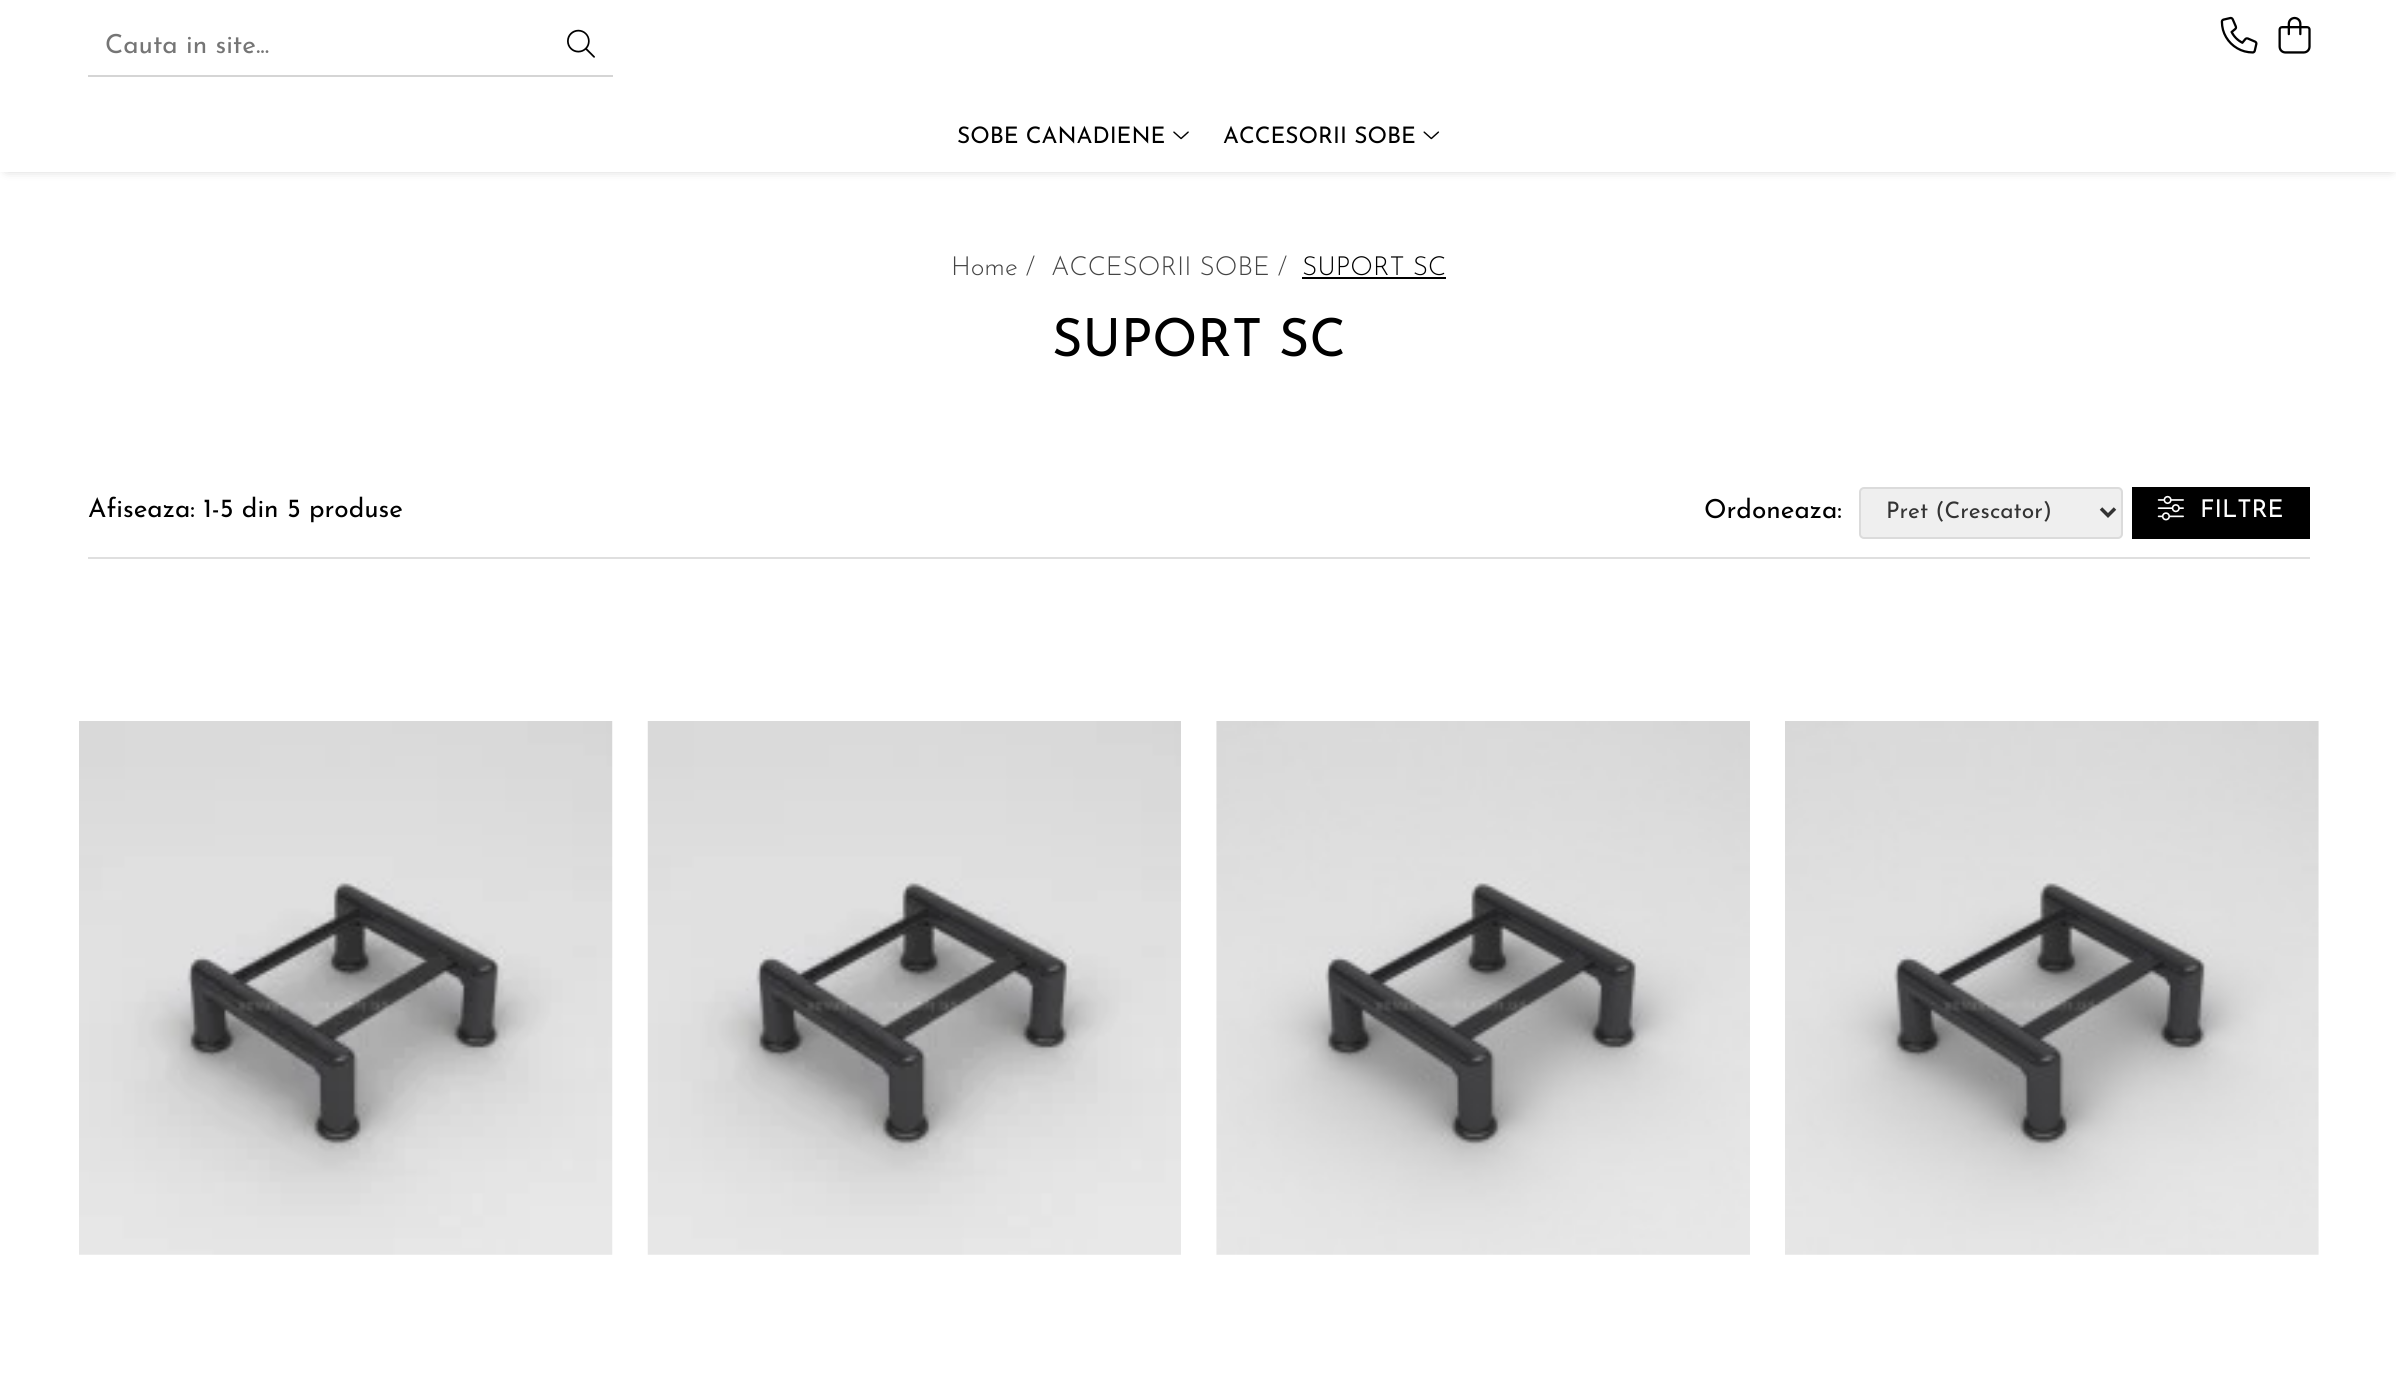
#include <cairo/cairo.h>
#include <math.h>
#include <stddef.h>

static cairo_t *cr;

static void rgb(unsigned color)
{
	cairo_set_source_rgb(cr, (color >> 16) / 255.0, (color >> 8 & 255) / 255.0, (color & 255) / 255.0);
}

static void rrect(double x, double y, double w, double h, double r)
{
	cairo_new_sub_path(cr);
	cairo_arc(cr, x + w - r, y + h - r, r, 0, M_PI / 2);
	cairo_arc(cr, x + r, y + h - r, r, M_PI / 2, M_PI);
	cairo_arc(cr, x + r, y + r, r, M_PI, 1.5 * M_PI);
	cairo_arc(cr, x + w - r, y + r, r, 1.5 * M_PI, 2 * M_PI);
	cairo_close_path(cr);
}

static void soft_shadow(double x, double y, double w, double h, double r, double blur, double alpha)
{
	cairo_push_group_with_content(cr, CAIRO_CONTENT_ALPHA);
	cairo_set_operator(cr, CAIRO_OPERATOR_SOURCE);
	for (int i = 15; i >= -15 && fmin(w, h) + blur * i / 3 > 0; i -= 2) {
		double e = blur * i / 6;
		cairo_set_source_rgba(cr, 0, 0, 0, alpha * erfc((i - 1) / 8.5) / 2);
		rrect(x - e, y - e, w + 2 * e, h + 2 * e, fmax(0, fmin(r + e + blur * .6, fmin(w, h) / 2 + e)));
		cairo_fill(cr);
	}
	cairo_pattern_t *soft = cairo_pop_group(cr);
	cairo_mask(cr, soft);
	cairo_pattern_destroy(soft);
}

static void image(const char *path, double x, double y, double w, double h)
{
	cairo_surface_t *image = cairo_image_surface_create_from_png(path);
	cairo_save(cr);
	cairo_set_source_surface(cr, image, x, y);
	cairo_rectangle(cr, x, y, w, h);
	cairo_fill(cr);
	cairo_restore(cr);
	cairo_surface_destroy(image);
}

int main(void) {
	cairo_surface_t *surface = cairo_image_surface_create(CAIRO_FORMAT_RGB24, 2396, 1377);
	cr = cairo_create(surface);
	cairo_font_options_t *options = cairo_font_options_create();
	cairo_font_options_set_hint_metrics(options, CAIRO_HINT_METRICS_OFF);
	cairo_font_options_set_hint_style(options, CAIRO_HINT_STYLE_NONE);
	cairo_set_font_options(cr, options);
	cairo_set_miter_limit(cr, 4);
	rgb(0xffffff);
	cairo_paint(cr);
	rgb(0x000000);
	soft_shadow(7, 11, 2384, 157, 0, 6, 0.3);
	rgb(0xffffff);
	cairo_rectangle(cr, 0, 0, 2396, 172);
	cairo_fill(cr);
	rgb(0xd5d5d5);
	cairo_rectangle(cr, 88, 75, 525, 2);
	cairo_fill(cr);
	image("img/1.png", 567, 29, 28, 29);
	image("img/2.png", 2220, 16, 38, 38);
	image("img/3.png", 2278, 16, 33, 38);
	image("img/4.png", 1173, 131, 16, 9);
	image("img/5.png", 1423, 131, 17, 9);
	rgb(0x000000);
	cairo_rectangle(cr, 1302, 277, 144, 2);
	cairo_fill(cr);
	rgb(0xdfdfdf);
	cairo_rectangle(cr, 88, 557, 2222, 2);
	cairo_fill(cr);
	rgb(0xefefef);
	rrect(1860, 488, 262, 50, 4);
	cairo_fill_preserve(cr);
	rgb(0xdbdbdb);
	cairo_stroke(cr);
	cairo_new_path(cr);
	cairo_move_to(cr, 2101, 508.5);
	cairo_line_to(cr, 2108, 515.5);
	cairo_line_to(cr, 2115, 508.5);
	rgb(0x333333);
	cairo_set_line_width(cr, 3.5);
	cairo_stroke(cr);
	rgb(0x000000);
	cairo_rectangle(cr, 2132, 487, 178, 52);
	cairo_fill(cr);
	image("img/6.png", 2157, 495, 27, 26);
	image("img/7.png", 79, 721, 534, 534);
	image("img/8.png", 647, 721, 534, 534);
	image("img/9.png", 1216, 721, 534, 534);
	image("img/10.png", 1785, 721, 534, 534);
	cairo_select_font_face(cr, "Josefin Sans", CAIRO_FONT_SLANT_NORMAL, CAIRO_FONT_WEIGHT_NORMAL);
	cairo_set_font_size(cr, 26.25);
	rgb(0x757575);
	cairo_move_to(cr, 105, 53);
	cairo_show_text(cr, "Cauta in site...");
	cairo_set_font_size(cr, 22.75);
	rgb(0x000000);
	cairo_move_to(cr, 957, 143);
	cairo_show_text(cr, "SOBE CANADIENE");
	cairo_move_to(cr, 1223, 143);
	cairo_show_text(cr, "ACCESORII SOBE");
	cairo_select_font_face(cr, "Josefin Sans Light", CAIRO_FONT_SLANT_NORMAL, CAIRO_FONT_WEIGHT_NORMAL);
	cairo_set_font_size(cr, 26.25);
	rgb(0x444444);
	cairo_move_to(cr, 951, 275);
	cairo_show_text(cr, "Home /");
	cairo_move_to(cr, 1051, 275);
	cairo_show_text(cr, "ACCESORII SOBE /");
	rgb(0x000000);
	cairo_move_to(cr, 1302, 275);
	cairo_show_text(cr, "SUPORT SC");
	cairo_select_font_face(cr, "Josefin Sans", CAIRO_FONT_SLANT_NORMAL, CAIRO_FONT_WEIGHT_NORMAL);
	cairo_set_font_size(cr, 52.5);
	cairo_move_to(cr, 1052, 356);
	cairo_show_text(cr, "SUPORT SC");
	cairo_set_font_size(cr, 26.25);
	cairo_move_to(cr, 88, 517);
	cairo_show_text(cr, "Afiseaza: 1-5 din 5 produse");
	cairo_move_to(cr, 1704, 518);
	cairo_show_text(cr, "Ordoneaza:");
	cairo_set_font_size(cr, 22.75);
	rgb(0x333333);
	cairo_move_to(cr, 1886, 518);
	cairo_show_text(cr, "Pret (Crescator)");
	cairo_set_font_size(cr, 24.5);
	rgb(0xffffff);
	cairo_move_to(cr, 2200, 517);
	cairo_show_text(cr, "FILTRE");
	cairo_surface_write_to_png(surface, "page.png");
	cairo_font_options_destroy(options);
	cairo_destroy(cr);
	cairo_surface_destroy(surface);
	return 0;
}
